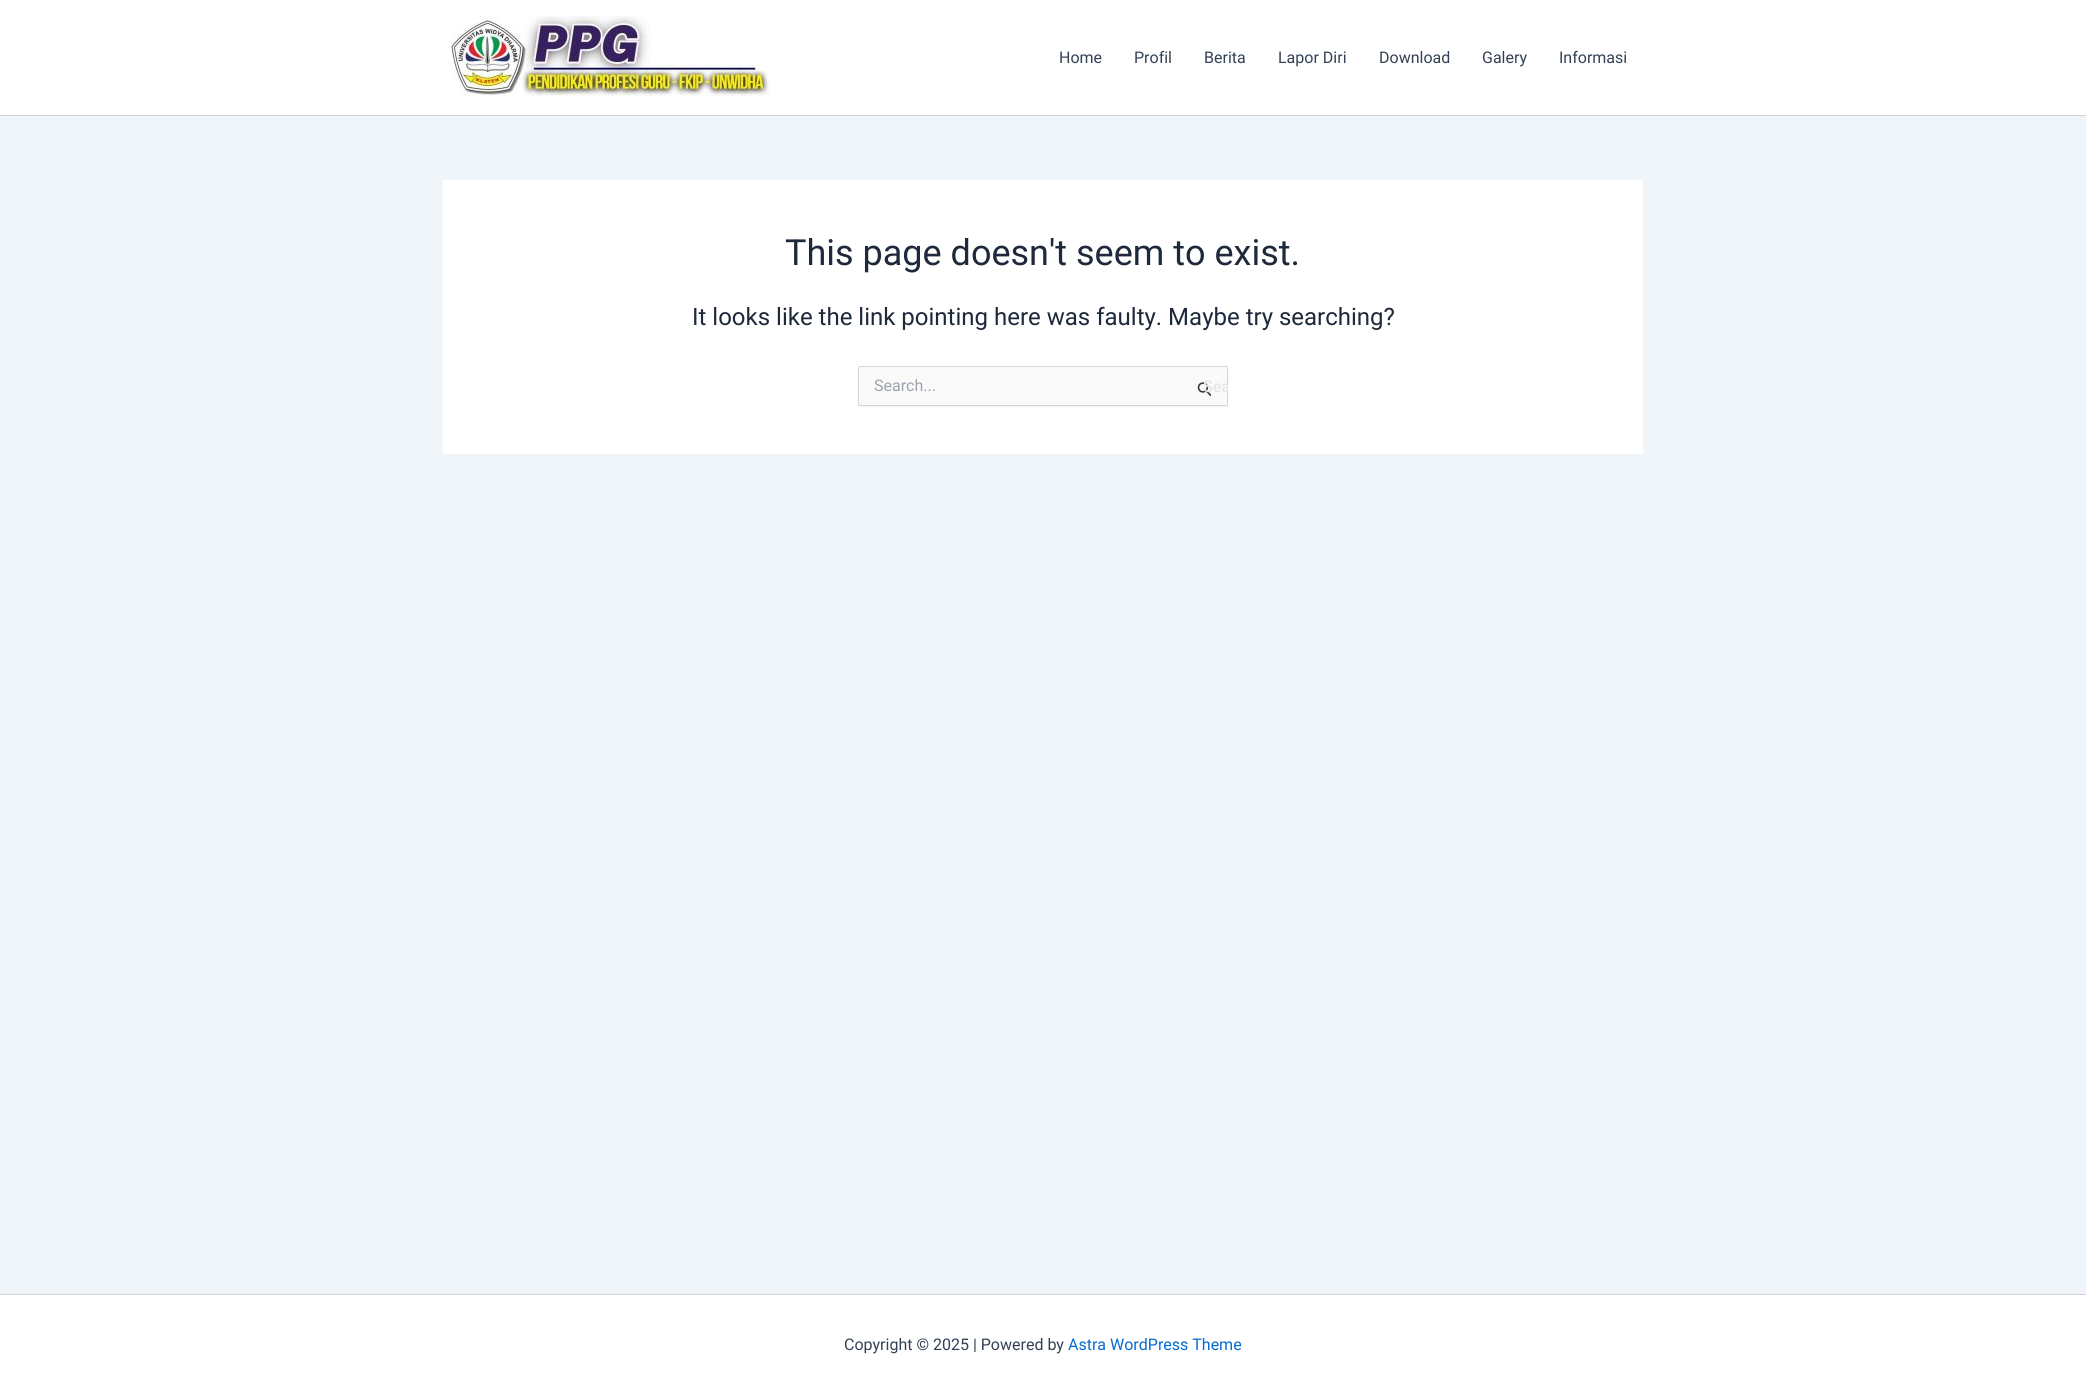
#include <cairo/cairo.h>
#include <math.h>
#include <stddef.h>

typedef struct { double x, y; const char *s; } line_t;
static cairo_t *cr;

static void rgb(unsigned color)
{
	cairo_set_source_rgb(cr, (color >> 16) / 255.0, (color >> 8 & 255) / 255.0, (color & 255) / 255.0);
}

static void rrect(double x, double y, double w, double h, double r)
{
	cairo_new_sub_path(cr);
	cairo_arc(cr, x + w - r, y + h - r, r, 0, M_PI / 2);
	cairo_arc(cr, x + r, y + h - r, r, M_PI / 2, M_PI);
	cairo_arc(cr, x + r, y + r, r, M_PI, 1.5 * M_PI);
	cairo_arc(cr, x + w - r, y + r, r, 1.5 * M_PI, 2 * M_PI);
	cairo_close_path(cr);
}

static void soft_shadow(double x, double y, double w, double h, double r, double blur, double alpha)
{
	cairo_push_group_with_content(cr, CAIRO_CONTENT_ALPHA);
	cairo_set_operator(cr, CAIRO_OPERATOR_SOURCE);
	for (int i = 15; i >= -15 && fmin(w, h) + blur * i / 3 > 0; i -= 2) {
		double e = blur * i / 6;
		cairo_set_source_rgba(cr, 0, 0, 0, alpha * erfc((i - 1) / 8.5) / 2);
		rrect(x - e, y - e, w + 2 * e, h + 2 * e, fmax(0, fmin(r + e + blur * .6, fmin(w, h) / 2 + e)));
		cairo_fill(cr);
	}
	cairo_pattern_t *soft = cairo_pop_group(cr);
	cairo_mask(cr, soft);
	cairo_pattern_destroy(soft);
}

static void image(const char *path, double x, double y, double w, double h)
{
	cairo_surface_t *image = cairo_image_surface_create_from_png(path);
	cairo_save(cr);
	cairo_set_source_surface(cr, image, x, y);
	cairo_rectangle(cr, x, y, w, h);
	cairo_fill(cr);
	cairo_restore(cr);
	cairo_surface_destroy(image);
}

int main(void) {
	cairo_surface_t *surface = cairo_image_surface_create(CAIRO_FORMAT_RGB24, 2086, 1395);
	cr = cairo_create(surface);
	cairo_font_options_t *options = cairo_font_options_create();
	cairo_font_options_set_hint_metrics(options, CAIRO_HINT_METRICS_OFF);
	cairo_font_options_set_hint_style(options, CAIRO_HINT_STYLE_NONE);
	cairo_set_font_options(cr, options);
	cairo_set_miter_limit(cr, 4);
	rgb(0xf0f5fa);
	cairo_paint(cr);
	rgb(0xffffff);
	cairo_rectangle(cr, 0, 0, 2086, 115);
	cairo_fill(cr);
	rgb(0xd1d5db);
	cairo_rectangle(cr, 0, 115, 2086, 1);
	cairo_fill(cr);
	image("img/1.png", 451, 16, 319, 81);
	rgb(0xffffff);
	cairo_rectangle(cr, 443, 180, 1200, 274);
	cairo_fill(cr);
	rgb(0x000000);
	soft_shadow(858, 367, 370, 40, 2, 1, 0.05);
	rgb(0xfafafa);
	rrect(858.5, 366.5, 369, 39, 1.5);
	cairo_fill_preserve(cr);
	rgb(0xd1d5db);
	cairo_set_line_width(cr, 1);
	cairo_stroke(cr);
	image("img/2.png", 1197, 382, 14, 15);
	rgb(0xffffff);
	cairo_rectangle(cr, 0, 1295, 2086, 100);
	cairo_fill(cr);
	rgb(0xd1d5db);
	cairo_rectangle(cr, 0, 1294, 2086, 1);
	cairo_fill(cr);
	cairo_select_font_face(cr, "Roboto", CAIRO_FONT_SLANT_NORMAL, CAIRO_FONT_WEIGHT_NORMAL);
	cairo_set_font_size(cr, 16);
	rgb(0x334155);
	{
		static const line_t items[] = {
			{1059, 63, "Home"},
			{1134, 63, "Profil"},
			{1204, 63, "Berita"},
			{1278, 63, "Lapor Diri"},
			{1379, 63, "Download"},
			{1482, 63, "Galery"},
			{1559, 63, "Informasi"},
		};
		for (size_t i = 0; i < sizeof items / sizeof *items; i++) {
			cairo_move_to(cr, items[i].x, items[i].y);
			cairo_show_text(cr, items[i].s);
		}
	}
	cairo_set_font_size(cr, 36);
	rgb(0x1e293b);
	cairo_move_to(cr, 785, 265);
	cairo_show_text(cr, "This page doesn't seem to exist.");
	cairo_set_font_size(cr, 24);
	cairo_move_to(cr, 692, 325);
	cairo_show_text(cr, "It looks like the link pointing here was faulty. Maybe try searching?");
	cairo_set_font_size(cr, 16);
	rgb(0x9ca3af);
	cairo_move_to(cr, 874, 391);
	cairo_show_text(cr, "Search...");
	cairo_save(cr);
	rrect(1183, 366, 45, 42, 2);
	cairo_clip(cr);
	cairo_select_font_face(cr, "Roboto Medium", CAIRO_FONT_SLANT_NORMAL, CAIRO_FONT_WEIGHT_NORMAL);
	rgb(0xe5e5e6);
	cairo_move_to(cr, 1203, 392);
	cairo_show_text(cr, "Sea");
	cairo_restore(cr);
	rgb(0x334155);
	cairo_move_to(cr, 844, 1350);
	cairo_show_text(cr, "Copyright © 2025 | Powered by");
	rgb(0x046bd2);
	cairo_move_to(cr, 1068, 1350);
	cairo_show_text(cr, "Astra WordPress Theme");
	cairo_surface_write_to_png(surface, "page.png");
	cairo_font_options_destroy(options);
	cairo_destroy(cr);
	cairo_surface_destroy(surface);
	return 0;
}
